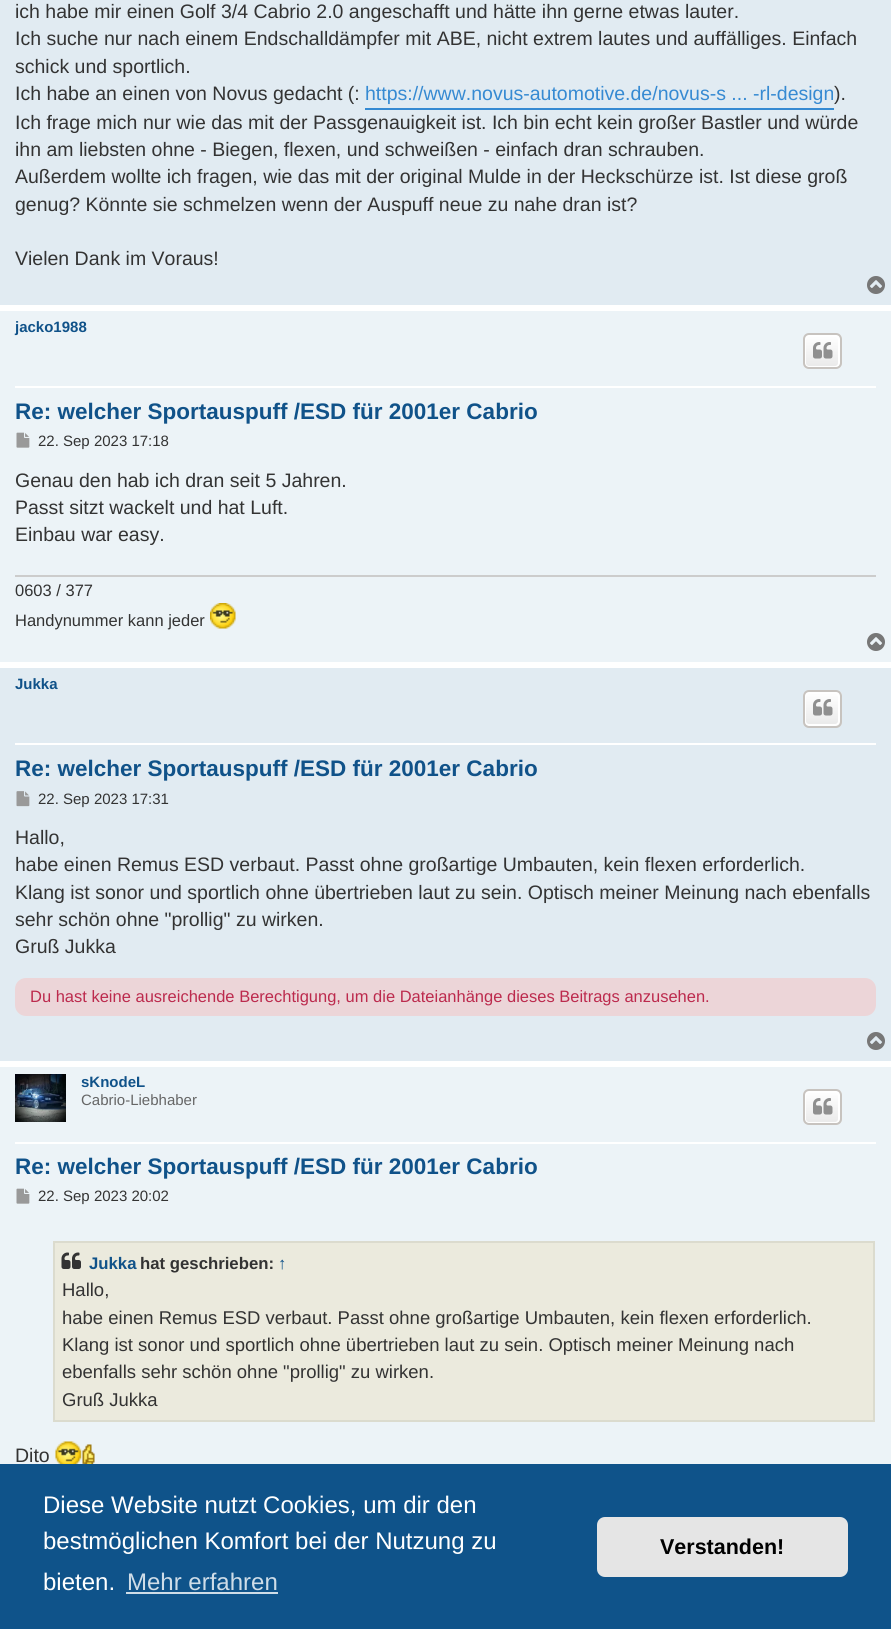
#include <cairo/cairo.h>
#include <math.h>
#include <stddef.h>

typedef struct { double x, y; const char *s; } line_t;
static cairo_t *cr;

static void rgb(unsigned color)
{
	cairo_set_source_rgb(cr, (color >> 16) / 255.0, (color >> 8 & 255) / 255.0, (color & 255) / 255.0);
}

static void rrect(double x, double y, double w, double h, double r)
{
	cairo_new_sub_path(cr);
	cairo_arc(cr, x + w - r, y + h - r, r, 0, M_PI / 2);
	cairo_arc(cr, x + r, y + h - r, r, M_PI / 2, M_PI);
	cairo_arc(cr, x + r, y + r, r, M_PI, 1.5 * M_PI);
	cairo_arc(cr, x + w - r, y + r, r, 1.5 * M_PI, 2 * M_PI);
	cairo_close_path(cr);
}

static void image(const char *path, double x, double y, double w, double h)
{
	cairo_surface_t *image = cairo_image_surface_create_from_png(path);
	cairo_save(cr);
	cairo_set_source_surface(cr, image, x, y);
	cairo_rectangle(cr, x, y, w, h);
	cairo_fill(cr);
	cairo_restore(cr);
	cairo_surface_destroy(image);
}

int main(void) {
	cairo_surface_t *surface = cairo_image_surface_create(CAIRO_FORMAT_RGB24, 891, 1629);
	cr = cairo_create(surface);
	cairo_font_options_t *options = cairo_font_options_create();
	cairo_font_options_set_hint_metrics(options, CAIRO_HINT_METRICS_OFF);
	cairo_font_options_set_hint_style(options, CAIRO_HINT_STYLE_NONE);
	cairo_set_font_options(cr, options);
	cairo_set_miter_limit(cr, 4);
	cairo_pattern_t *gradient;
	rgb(0xffffff);
	cairo_paint(cr);
	rgb(0xe1ebf2);
	cairo_rectangle(cr, 0, 0, 891, 305);
	cairo_fill(cr);
	rgb(0x368ad2);
	cairo_rectangle(cr, 365, 108, 469, 2);
	cairo_fill(cr);
	image("img/1.png", 867, 276, 18, 18);
	rgb(0xecf3f7);
	cairo_rectangle(cr, 0, 311, 891, 351);
	cairo_fill(cr);
	rgb(0xffffff);
	cairo_rectangle(cr, 15, 386, 861, 2);
	cairo_fill(cr);
	cairo_save(cr);
	rrect(803, 333, 39, 36, 6);
	cairo_clip(cr);
	gradient = cairo_pattern_create_linear(822, 335, 822, 368);
	cairo_pattern_add_color_stop_rgba(gradient, 0, 1, 1, 1, 1);
	cairo_pattern_add_color_stop_rgba(gradient, 1, 0.914, 0.914, 0.914, 1);
	cairo_set_source(cr, gradient);
	cairo_pattern_destroy(gradient);
	cairo_rectangle(cr, 803, 335, 39, 33);
	cairo_fill(cr);
	cairo_restore(cr);
	rrect(805, 336, 34, 31, 4);
	cairo_stroke(cr);
	rrect(804, 334, 37, 34, 5);
	rgb(0xc7c3bf);
	cairo_stroke(cr);
	image("img/2.png", 813, 342, 20, 17);
	image("img/3.png", 16, 432, 14, 16);
	rgb(0xcccccc);
	cairo_rectangle(cr, 15, 575, 861, 2);
	cairo_fill(cr);
	image("img/4.png", 210, 603, 26, 26);
	image("img/5.png", 867, 633, 18, 18);
	rgb(0xe1ebf2);
	cairo_rectangle(cr, 0, 668, 891, 393);
	cairo_fill(cr);
	rgb(0xffffff);
	cairo_rectangle(cr, 15, 743, 861, 2);
	cairo_fill(cr);
	cairo_save(cr);
	rrect(803, 690, 39, 38, 6);
	cairo_clip(cr);
	gradient = cairo_pattern_create_linear(822, 692, 822, 726);
	cairo_pattern_add_color_stop_rgba(gradient, 0, 1, 1, 1, 1);
	cairo_pattern_add_color_stop_rgba(gradient, 1, 0.914, 0.914, 0.914, 1);
	cairo_set_source(cr, gradient);
	cairo_pattern_destroy(gradient);
	cairo_rectangle(cr, 803, 692, 39, 34);
	cairo_fill(cr);
	cairo_restore(cr);
	rrect(805, 693, 34, 32, 4);
	cairo_stroke(cr);
	rrect(804, 691, 37, 36, 5);
	rgb(0xc7c3bf);
	cairo_stroke(cr);
	image("img/6.png", 813, 699, 20, 17);
	image("img/7.png", 16, 791, 14, 16);
	rgb(0xecd5d8);
	rrect(15, 978, 861, 38, 11);
	cairo_fill(cr);
	image("img/1.png", 867, 1032, 18, 18);
	rgb(0xecf3f7);
	cairo_rectangle(cr, 0, 1067, 891, 397);
	cairo_fill(cr);
	rgb(0xffffff);
	cairo_rectangle(cr, 15, 1142, 861, 2);
	cairo_fill(cr);
	image("img/8.png", 15, 1074, 51, 48);
	cairo_save(cr);
	rrect(803, 1089, 39, 36, 6);
	cairo_clip(cr);
	gradient = cairo_pattern_create_linear(822, 1091, 822, 1124);
	cairo_pattern_add_color_stop_rgba(gradient, 0, 1, 1, 1, 1);
	cairo_pattern_add_color_stop_rgba(gradient, 1, 0.914, 0.914, 0.914, 1);
	cairo_set_source(cr, gradient);
	cairo_pattern_destroy(gradient);
	cairo_rectangle(cr, 803, 1091, 39, 33);
	cairo_fill(cr);
	cairo_restore(cr);
	rrect(805, 1092, 34, 31, 4);
	cairo_stroke(cr);
	rrect(804, 1090, 37, 34, 5);
	rgb(0xc7c3bf);
	cairo_stroke(cr);
	image("img/2.png", 813, 1098, 20, 17);
	image("img/3.png", 16, 1188, 14, 16);
	rgb(0xebeadd);
	cairo_rectangle(cr, 54, 1242, 820, 179);
	cairo_fill_preserve(cr);
	rgb(0xdbdbce);
	cairo_stroke(cr);
	image("img/9.png", 61, 1252, 20, 17);
	image("img/10.png", 55, 1441, 40, 23);
	rgb(0x0f538a);
	cairo_rectangle(cr, 0, 1464, 891, 165);
	cairo_fill(cr);
	rgb(0xcfdde8);
	cairo_rectangle(cr, 126, 1592, 152, 2);
	cairo_fill(cr);
	rgb(0xe5e5e5);
	rrect(597, 1517, 251, 60, 8);
	cairo_fill(cr);
	cairo_select_font_face(cr, "Liberation Sans", CAIRO_FONT_SLANT_NORMAL, CAIRO_FONT_WEIGHT_NORMAL);
	cairo_set_font_size(cr, 19.5);
	rgb(0x333333);
	{
		static const line_t items[] = {
			{15, 18, "ich habe mir einen Golf 3/4 Cabrio 2.0 angeschafft und hätte ihn gerne etwas lauter."},
			{15, 45, "Ich suche nur nach einem Endschalldämpfer mit ABE, nicht extrem lautes und auffälliges. Einfach"},
			{15, 73, "schick und sportlich."},
			{15, 100, "Ich habe an einen von Novus gedacht (:"},
		};
		for (size_t i = 0; i < sizeof items / sizeof *items; i++) {
			cairo_move_to(cr, items[i].x, items[i].y);
			cairo_show_text(cr, items[i].s);
		}
	}
	rgb(0x368ad2);
	cairo_move_to(cr, 365, 100);
	cairo_show_text(cr, "https://www.novus-automotive.de/novus-s ... -rl-design");
	rgb(0x333333);
	{
		static const line_t items[] = {
			{834, 100, ")."},
			{15, 129, "Ich frage mich nur wie das mit der Passgenauigkeit ist. Ich bin echt kein großer Bastler und würde"},
			{15, 156, "ihn am liebsten ohne - Biegen, flexen, und schweißen - einfach dran schrauben."},
			{15, 183, "Außerdem wollte ich fragen, wie das mit der original Mulde in der Heckschürze ist. Ist diese groß"},
			{15, 211, "genug? Könnte sie schmelzen wenn der Auspuff neue zu nahe dran ist?"},
			{15, 265, "Vielen Dank im Voraus!"},
		};
		for (size_t i = 0; i < sizeof items / sizeof *items; i++) {
			cairo_move_to(cr, items[i].x, items[i].y);
			cairo_show_text(cr, items[i].s);
		}
	}
	cairo_select_font_face(cr, "Liberation Sans", CAIRO_FONT_SLANT_NORMAL, CAIRO_FONT_WEIGHT_BOLD);
	cairo_set_font_size(cr, 15);
	rgb(0x105289);
	cairo_move_to(cr, 15, 332);
	cairo_show_text(cr, "jacko1988");
	cairo_set_font_size(cr, 22.5);
	cairo_move_to(cr, 15, 419);
	cairo_show_text(cr, "Re: welcher Sportauspuff /ESD für 2001er Cabrio");
	cairo_select_font_face(cr, "Liberation Sans", CAIRO_FONT_SLANT_NORMAL, CAIRO_FONT_WEIGHT_NORMAL);
	cairo_set_font_size(cr, 15);
	rgb(0x333333);
	cairo_move_to(cr, 38, 446);
	cairo_show_text(cr, "22. Sep 2023 17:18");
	cairo_set_font_size(cr, 19.5);
	{
		static const line_t items[] = {
			{15, 487, "Genau den hab ich dran seit 5 Jahren."},
			{15, 514, "Passt sitzt wackelt und hat Luft."},
			{15, 541, "Einbau war easy."},
		};
		for (size_t i = 0; i < sizeof items / sizeof *items; i++) {
			cairo_move_to(cr, items[i].x, items[i].y);
			cairo_show_text(cr, items[i].s);
		}
	}
	cairo_set_font_size(cr, 16.5);
	cairo_move_to(cr, 15, 596);
	cairo_show_text(cr, "0603 / 377");
	cairo_move_to(cr, 15, 626);
	cairo_show_text(cr, "Handynummer kann jeder");
	cairo_select_font_face(cr, "Liberation Sans", CAIRO_FONT_SLANT_NORMAL, CAIRO_FONT_WEIGHT_BOLD);
	cairo_set_font_size(cr, 15);
	rgb(0x105289);
	cairo_move_to(cr, 15, 689);
	cairo_show_text(cr, "Jukka");
	cairo_set_font_size(cr, 22.5);
	cairo_move_to(cr, 15, 776);
	cairo_show_text(cr, "Re: welcher Sportauspuff /ESD für 2001er Cabrio");
	cairo_select_font_face(cr, "Liberation Sans", CAIRO_FONT_SLANT_NORMAL, CAIRO_FONT_WEIGHT_NORMAL);
	cairo_set_font_size(cr, 15);
	rgb(0x333333);
	cairo_move_to(cr, 38, 804);
	cairo_show_text(cr, "22. Sep 2023 17:31");
	cairo_set_font_size(cr, 19.5);
	{
		static const line_t items[] = {
			{15, 844, "Hallo,"},
			{15, 871, "habe einen Remus ESD verbaut. Passt ohne großartige Umbauten, kein flexen erforderlich."},
			{15, 899, "Klang ist sonor und sportlich ohne übertrieben laut zu sein. Optisch meiner Meinung nach ebenfalls"},
			{15, 926, "sehr schön ohne \"prollig\" zu wirken."},
			{15, 953, "Gruß Jukka"},
		};
		for (size_t i = 0; i < sizeof items / sizeof *items; i++) {
			cairo_move_to(cr, items[i].x, items[i].y);
			cairo_show_text(cr, items[i].s);
		}
	}
	cairo_set_font_size(cr, 16.5);
	rgb(0xbc2a4d);
	cairo_move_to(cr, 30, 1002);
	cairo_show_text(cr, "Du hast keine ausreichende Berechtigung, um die Dateianhänge dieses Beitrags anzusehen.");
	cairo_select_font_face(cr, "Liberation Sans", CAIRO_FONT_SLANT_NORMAL, CAIRO_FONT_WEIGHT_BOLD);
	cairo_set_font_size(cr, 15);
	rgb(0x105289);
	cairo_move_to(cr, 81, 1087);
	cairo_show_text(cr, "sKnodeL");
	cairo_select_font_face(cr, "Liberation Sans", CAIRO_FONT_SLANT_NORMAL, CAIRO_FONT_WEIGHT_NORMAL);
	rgb(0x666666);
	cairo_move_to(cr, 81, 1105);
	cairo_show_text(cr, "Cabrio-Liebhaber");
	cairo_select_font_face(cr, "Liberation Sans", CAIRO_FONT_SLANT_NORMAL, CAIRO_FONT_WEIGHT_BOLD);
	cairo_set_font_size(cr, 22.5);
	rgb(0x105289);
	cairo_move_to(cr, 15, 1174);
	cairo_show_text(cr, "Re: welcher Sportauspuff /ESD für 2001er Cabrio");
	cairo_select_font_face(cr, "Liberation Sans", CAIRO_FONT_SLANT_NORMAL, CAIRO_FONT_WEIGHT_NORMAL);
	cairo_set_font_size(cr, 15);
	rgb(0x333333);
	cairo_move_to(cr, 38, 1201);
	cairo_show_text(cr, "22. Sep 2023 20:02");
	cairo_select_font_face(cr, "Liberation Sans", CAIRO_FONT_SLANT_NORMAL, CAIRO_FONT_WEIGHT_BOLD);
	cairo_set_font_size(cr, 16.75);
	rgb(0x105289);
	cairo_move_to(cr, 89, 1269);
	cairo_show_text(cr, "Jukka");
	rgb(0x333333);
	cairo_move_to(cr, 140, 1269);
	cairo_show_text(cr, "hat geschrieben:");
	rgb(0x105289);
	cairo_move_to(cr, 278, 1269);
	cairo_show_text(cr, "↑");
	cairo_select_font_face(cr, "Liberation Sans", CAIRO_FONT_SLANT_NORMAL, CAIRO_FONT_WEIGHT_NORMAL);
	cairo_set_font_size(cr, 18.5);
	rgb(0x333333);
	{
		static const line_t items[] = {
			{62, 1296, "Hallo,"},
			{62, 1324, "habe einen Remus ESD verbaut. Passt ohne großartige Umbauten, kein flexen erforderlich."},
			{62, 1351, "Klang ist sonor und sportlich ohne übertrieben laut zu sein. Optisch meiner Meinung nach"},
			{62, 1378, "ebenfalls sehr schön ohne \"prollig\" zu wirken."},
			{62, 1406, "Gruß Jukka"},
		};
		for (size_t i = 0; i < sizeof items / sizeof *items; i++) {
			cairo_move_to(cr, items[i].x, items[i].y);
			cairo_show_text(cr, items[i].s);
		}
	}
	cairo_set_font_size(cr, 19.5);
	cairo_move_to(cr, 15, 1462);
	cairo_show_text(cr, "Dito");
	cairo_set_font_size(cr, 24);
	rgb(0xffffff);
	{
		static const line_t items[] = {
			{43, 1513, "Diese Website nutzt Cookies, um dir den"},
			{43, 1549, "bestmöglichen Komfort bei der Nutzung zu"},
			{43, 1590, "bieten."},
		};
		for (size_t i = 0; i < sizeof items / sizeof *items; i++) {
			cairo_move_to(cr, items[i].x, items[i].y);
			cairo_show_text(cr, items[i].s);
		}
	}
	rgb(0xcfdde8);
	cairo_move_to(cr, 127, 1590);
	cairo_show_text(cr, "Mehr erfahren");
	cairo_select_font_face(cr, "Liberation Sans", CAIRO_FONT_SLANT_NORMAL, CAIRO_FONT_WEIGHT_BOLD);
	cairo_set_font_size(cr, 21.5);
	rgb(0x000000);
	cairo_move_to(cr, 660, 1554);
	cairo_show_text(cr, "Verstanden!");
	cairo_surface_write_to_png(surface, "page.png");
	cairo_font_options_destroy(options);
	cairo_destroy(cr);
	cairo_surface_destroy(surface);
	return 0;
}
